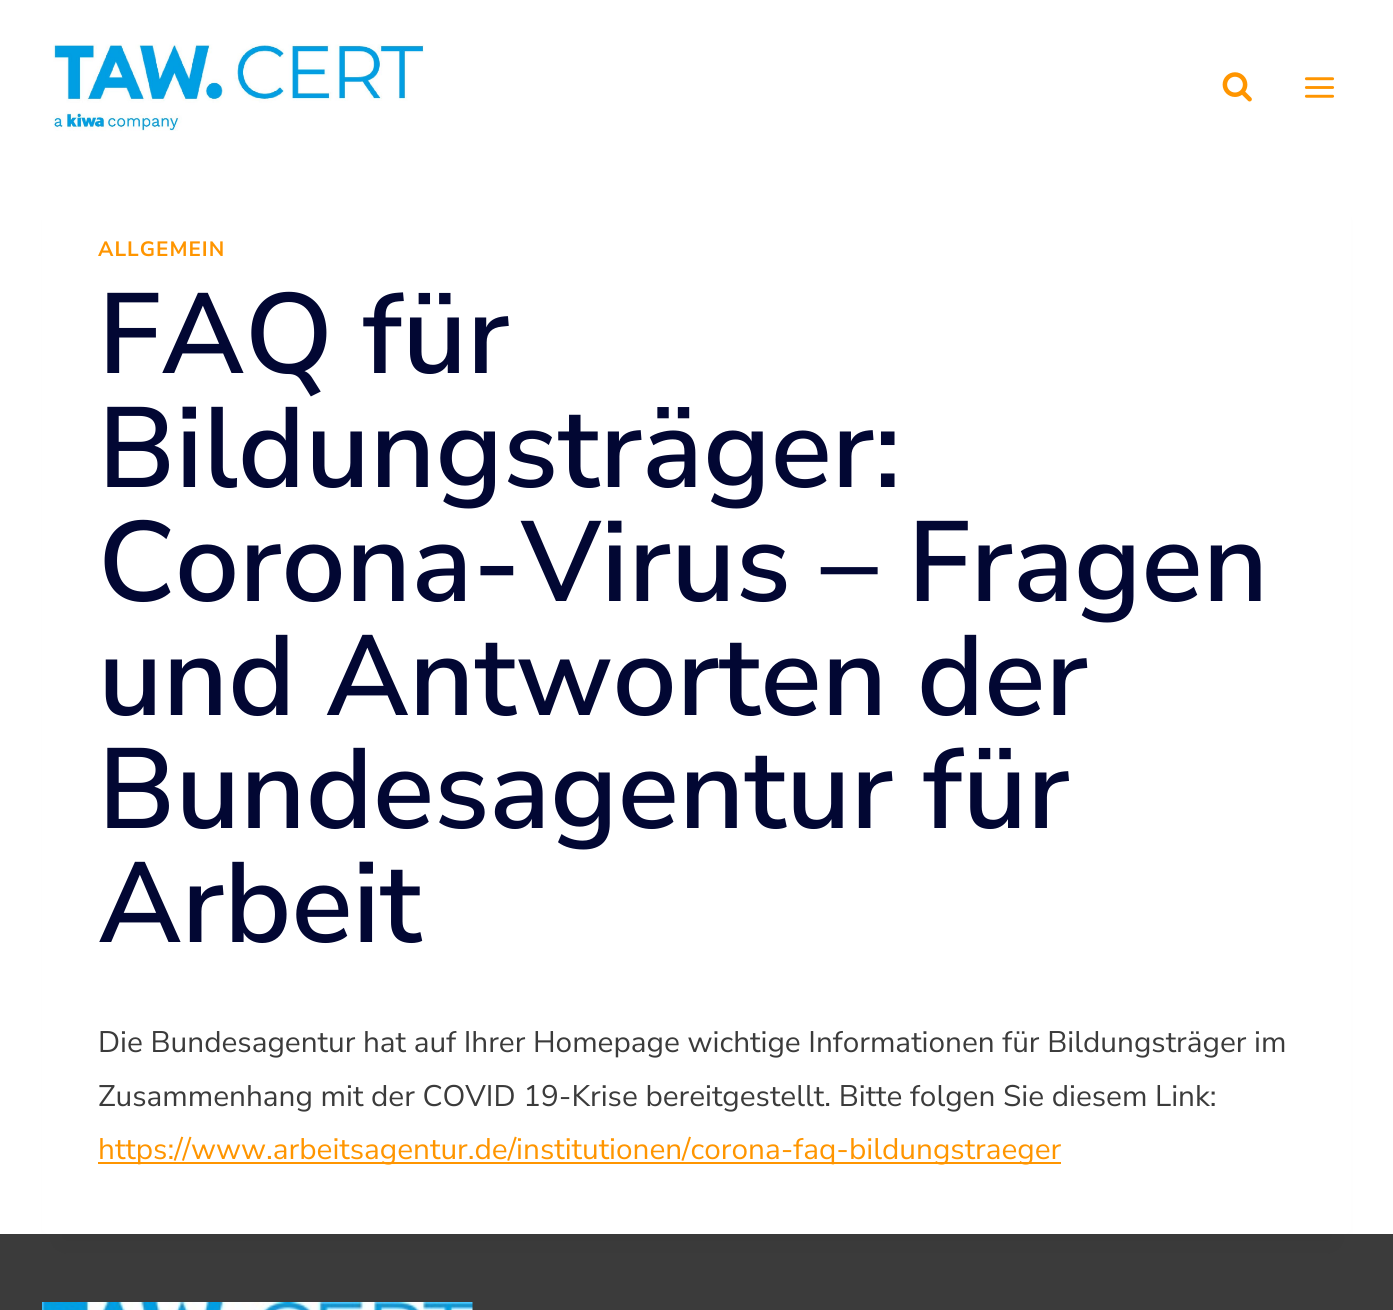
#include <cairo/cairo.h>
#include <math.h>
#include <stddef.h>

typedef struct { double x, y; const char *s; } line_t;
static cairo_t *cr;

static void rgb(unsigned color)
{
	cairo_set_source_rgb(cr, (color >> 16) / 255.0, (color >> 8 & 255) / 255.0, (color & 255) / 255.0);
}

static void tracked(double x, double y, const char *s, double letter, double word)
{
	cairo_move_to(cr, x, y);
	while (*s) {
		char ch[5] = {0};
		int n = 0;
		do ch[n++] = *s++; while ((*s & 0xC0) == 0x80);
		cairo_show_text(cr, ch);
		cairo_rel_move_to(cr, letter + word * (*ch == ' '), 0);
	}
}

static void rrect(double x, double y, double w, double h, double r)
{
	cairo_new_sub_path(cr);
	cairo_arc(cr, x + w - r, y + h - r, r, 0, M_PI / 2);
	cairo_arc(cr, x + r, y + h - r, r, M_PI / 2, M_PI);
	cairo_arc(cr, x + r, y + r, r, M_PI, 1.5 * M_PI);
	cairo_arc(cr, x + w - r, y + r, r, 1.5 * M_PI, 2 * M_PI);
	cairo_close_path(cr);
}

static void soft_shadow(double x, double y, double w, double h, double r, double blur, double alpha)
{
	cairo_push_group_with_content(cr, CAIRO_CONTENT_ALPHA);
	cairo_set_operator(cr, CAIRO_OPERATOR_SOURCE);
	for (int i = 15; i >= -15 && fmin(w, h) + blur * i / 3 > 0; i -= 2) {
		double e = blur * i / 6;
		cairo_set_source_rgba(cr, 0, 0, 0, alpha * erfc((i - 1) / 8.5) / 2);
		rrect(x - e, y - e, w + 2 * e, h + 2 * e, fmax(0, fmin(r + e + blur * .6, fmin(w, h) / 2 + e)));
		cairo_fill(cr);
	}
	cairo_pattern_t *soft = cairo_pop_group(cr);
	cairo_mask(cr, soft);
	cairo_pattern_destroy(soft);
}

static void image(const char *path, double x, double y, double w, double h)
{
	cairo_surface_t *image = cairo_image_surface_create_from_png(path);
	cairo_save(cr);
	cairo_set_source_surface(cr, image, x, y);
	cairo_rectangle(cr, x, y, w, h);
	cairo_fill(cr);
	cairo_restore(cr);
	cairo_surface_destroy(image);
}

int main(void) {
	cairo_surface_t *surface = cairo_image_surface_create(CAIRO_FORMAT_RGB24, 1393, 1310);
	cr = cairo_create(surface);
	cairo_font_options_t *options = cairo_font_options_create();
	cairo_font_options_set_hint_metrics(options, CAIRO_HINT_METRICS_OFF);
	cairo_font_options_set_hint_style(options, CAIRO_HINT_STYLE_NONE);
	cairo_set_font_options(cr, options);
	cairo_set_miter_limit(cr, 4);
	rgb(0xffffff);
	cairo_paint(cr);
	image("img/1.png", 53, 44, 371, 87);
	image("img/2.png", 1222, 72, 30, 30);
	image("img/3.png", 1304, 77, 31, 21);
	rgb(0x3b3b3b);
	cairo_rectangle(cr, 0, 1234, 1393, 76);
	cairo_fill(cr);
	rgb(0x000000);
	soft_shadow(60, 219, 1274, 1024, 0, 13, 0.05);
	rgb(0xffffff);
	rrect(42, 175, 1309, 1059, 7);
	cairo_fill(cr);
	rgb(0xff9500);
	cairo_rectangle(cr, 98, 1162, 963, 2);
	cairo_fill(cr);
	image("img/4.png", 42, 1302, 431, 8);
	cairo_select_font_face(cr, "Nunito Sans", CAIRO_FONT_SLANT_NORMAL, CAIRO_FONT_WEIGHT_BOLD);
	cairo_set_font_size(cr, 20.75);
	tracked(98, 256, "ALLGEMEIN", 1, 0);
	cairo_select_font_face(cr, "Nunito Sans SemiBold", CAIRO_FONT_SLANT_NORMAL, CAIRO_FONT_WEIGHT_NORMAL);
	cairo_set_font_size(cr, 113.75);
	rgb(0x020733);
	{
		static const line_t items[] = {
			{98, 373, "FAQ für"},
			{98, 487, "Bildungsträger:"},
			{98, 601, "Corona-Virus – Fragen"},
			{98, 715, "und Antworten der"},
			{98, 828, "Bundesagentur für"},
			{98, 942, "Arbeit"},
		};
		for (size_t i = 0; i < sizeof items / sizeof *items; i++) {
			cairo_move_to(cr, items[i].x, items[i].y);
			cairo_show_text(cr, items[i].s);
		}
	}
	cairo_select_font_face(cr, "Nunito Sans", CAIRO_FONT_SLANT_NORMAL, CAIRO_FONT_WEIGHT_NORMAL);
	cairo_set_font_size(cr, 29.75);
	rgb(0x3b3b3b);
	cairo_move_to(cr, 98, 1052);
	cairo_show_text(cr, "Die Bundesagentur hat auf Ihrer Homepage wichtige Informationen für Bildungsträger im");
	cairo_move_to(cr, 98, 1106);
	cairo_show_text(cr, "Zusammenhang mit der COVID 19-Krise bereitgestellt. Bitte folgen Sie diesem Link:");
	rgb(0xff9500);
	cairo_move_to(cr, 98, 1159);
	cairo_show_text(cr, "https://www.arbeitsagentur.de/institutionen/corona-faq-bildungstraeger");
	cairo_surface_write_to_png(surface, "page.png");
	cairo_font_options_destroy(options);
	cairo_destroy(cr);
	cairo_surface_destroy(surface);
	return 0;
}
